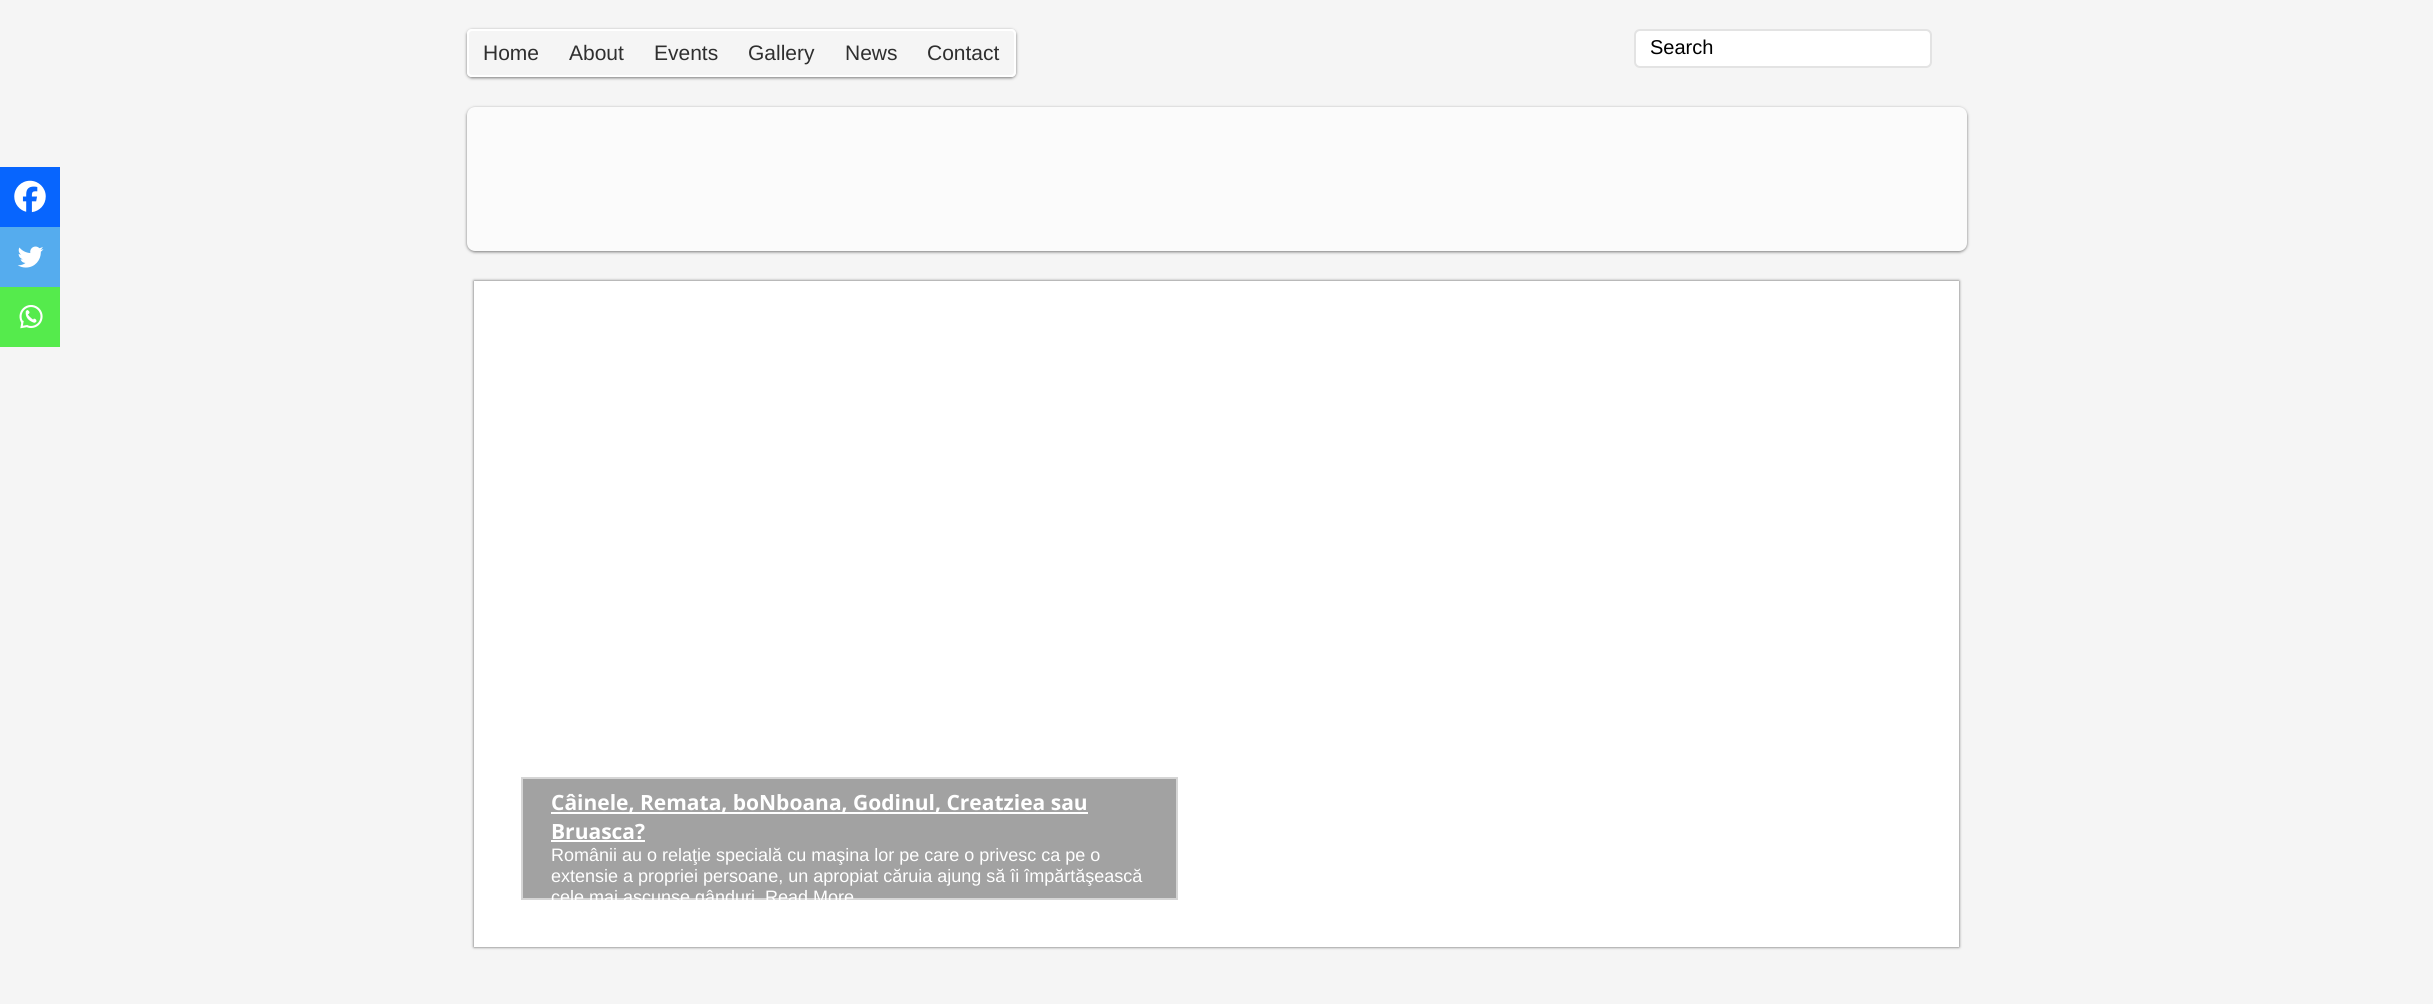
#include <cairo/cairo.h>
#include <math.h>
#include <stddef.h>

typedef struct { double x, y; const char *s; } line_t;
static cairo_t *cr;

static void rgb(unsigned color)
{
	cairo_set_source_rgb(cr, (color >> 16) / 255.0, (color >> 8 & 255) / 255.0, (color & 255) / 255.0);
}

static void rrect(double x, double y, double w, double h, double r)
{
	cairo_new_sub_path(cr);
	cairo_arc(cr, x + w - r, y + h - r, r, 0, M_PI / 2);
	cairo_arc(cr, x + r, y + h - r, r, M_PI / 2, M_PI);
	cairo_arc(cr, x + r, y + r, r, M_PI, 1.5 * M_PI);
	cairo_arc(cr, x + w - r, y + r, r, 1.5 * M_PI, 2 * M_PI);
	cairo_close_path(cr);
}

static void soft_shadow(double x, double y, double w, double h, double r, double blur, double alpha)
{
	cairo_push_group_with_content(cr, CAIRO_CONTENT_ALPHA);
	cairo_set_operator(cr, CAIRO_OPERATOR_SOURCE);
	for (int i = 15; i >= -15 && fmin(w, h) + blur * i / 3 > 0; i -= 2) {
		double e = blur * i / 6;
		cairo_set_source_rgba(cr, 0, 0, 0, alpha * erfc((i - 1) / 8.5) / 2);
		rrect(x - e, y - e, w + 2 * e, h + 2 * e, fmax(0, fmin(r + e + blur * .6, fmin(w, h) / 2 + e)));
		cairo_fill(cr);
	}
	cairo_pattern_t *soft = cairo_pop_group(cr);
	cairo_mask(cr, soft);
	cairo_pattern_destroy(soft);
}

static void image(const char *path, double x, double y, double w, double h)
{
	cairo_surface_t *image = cairo_image_surface_create_from_png(path);
	cairo_save(cr);
	cairo_set_source_surface(cr, image, x, y);
	cairo_rectangle(cr, x, y, w, h);
	cairo_fill(cr);
	cairo_restore(cr);
	cairo_surface_destroy(image);
}

int main(void) {
	cairo_surface_t *surface = cairo_image_surface_create(CAIRO_FORMAT_RGB24, 2433, 1004);
	cr = cairo_create(surface);
	cairo_font_options_t *options = cairo_font_options_create();
	cairo_font_options_set_hint_metrics(options, CAIRO_HINT_METRICS_OFF);
	cairo_font_options_set_hint_style(options, CAIRO_HINT_STYLE_NONE);
	cairo_set_font_options(cr, options);
	cairo_set_miter_limit(cr, 4);
	rgb(0xf5f5f5);
	cairo_paint(cr);
	rgb(0x0765fe);
	cairo_rectangle(cr, 0, 167, 60, 60);
	cairo_fill(cr);
	image("img/1.png", 14, 180, 32, 33);
	rgb(0x55acee);
	cairo_rectangle(cr, 0, 227, 60, 60);
	cairo_fill(cr);
	image("img/2.png", 17, 246, 27, 22);
	rgb(0x55eb4c);
	cairo_rectangle(cr, 0, 287, 60, 60);
	cairo_fill(cr);
	image("img/3.png", 19, 305, 24, 24);
	cairo_save(cr);
	cairo_set_fill_rule(cr, CAIRO_FILL_RULE_EVEN_ODD);
	cairo_new_path(cr);
	cairo_move_to(cr, 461, 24);
	cairo_line_to(cr, 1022, 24);
	cairo_line_to(cr, 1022, 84);
	cairo_line_to(cr, 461, 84);
	cairo_close_path(cr);
	cairo_move_to(cr, 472, 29);
	cairo_line_to(cr, 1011, 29);
	cairo_curve_to(cr, 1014, 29, 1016, 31, 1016, 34);
	cairo_line_to(cr, 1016, 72);
	cairo_curve_to(cr, 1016, 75, 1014, 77, 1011, 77);
	cairo_line_to(cr, 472, 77);
	cairo_curve_to(cr, 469, 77, 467, 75, 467, 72);
	cairo_line_to(cr, 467, 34);
	cairo_curve_to(cr, 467, 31, 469, 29, 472, 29);
	cairo_close_path(cr);
	cairo_clip(cr);
	rgb(0x787878);
	soft_shadow(467, 30, 549, 48, 5, 1.5, 1);
	cairo_restore(cr);
	rrect(468, 30, 547, 46, 4);
	rgb(0xffffff);
	cairo_stroke(cr);
	rrect(1635, 30, 296, 37, 5);
	cairo_fill_preserve(cr);
	rgb(0xe3e3e3);
	cairo_stroke(cr);
	rgb(0x787878);
	soft_shadow(467, 108, 1500, 144, 8, 1.5, 1);
	rgb(0xfbfbfb);
	rrect(467, 107, 1500, 144, 8);
	cairo_fill(cr);
	rgb(0x585858);
	soft_shadow(474, 281, 1485, 666, 0, 1.5, 1);
	rgb(0xffffff);
	cairo_rectangle(cr, 474, 281, 1485, 666);
	cairo_fill(cr);
	rgb(0xa2a2a2);
	cairo_rectangle(cr, 522, 778, 655, 121);
	cairo_fill_preserve(cr);
	rgb(0xd5d5d5);
	cairo_stroke(cr);
	rgb(0xffffff);
	cairo_rectangle(cr, 551, 812, 537, 2);
	cairo_fill(cr);
	cairo_rectangle(cr, 551, 840, 94, 2);
	cairo_fill(cr);
	cairo_select_font_face(cr, "Liberation Sans", CAIRO_FONT_SLANT_NORMAL, CAIRO_FONT_WEIGHT_NORMAL);
	cairo_set_font_size(cr, 21);
	rgb(0x2f2f2f);
	{
		static const line_t items[] = {
			{483, 60, "Home"},
			{569, 60, "About"},
			{654, 60, "Events"},
			{748, 60, "Gallery"},
			{845, 60, "News"},
			{927, 60, "Contact"},
		};
		for (size_t i = 0; i < sizeof items / sizeof *items; i++) {
			cairo_move_to(cr, items[i].x, items[i].y);
			cairo_show_text(cr, items[i].s);
		}
	}
	cairo_set_font_size(cr, 20);
	rgb(0x000000);
	cairo_move_to(cr, 1650, 54);
	cairo_show_text(cr, "Search");
	cairo_select_font_face(cr, "Open Sans", CAIRO_FONT_SLANT_NORMAL, CAIRO_FONT_WEIGHT_BOLD);
	cairo_set_font_size(cr, 21);
	rgb(0xffffff);
	cairo_move_to(cr, 551, 810);
	cairo_show_text(cr, "Câinele, Remata, boNboana, Godinul, Creatziea sau");
	cairo_move_to(cr, 551, 839);
	cairo_show_text(cr, "Bruasca?");
	cairo_select_font_face(cr, "Liberation Sans", CAIRO_FONT_SLANT_NORMAL, CAIRO_FONT_WEIGHT_NORMAL);
	cairo_set_font_size(cr, 18);
	cairo_move_to(cr, 551, 861);
	cairo_show_text(cr, "Românii au o relaţie specială cu maşina lor pe care o privesc ca pe o");
	cairo_move_to(cr, 551, 882);
	cairo_show_text(cr, "extensie a propriei persoane, un apropiat căruia ajung să îi împărtăşească");
	cairo_save(cr);
	cairo_rectangle(cr, 521, 780, 657, 120);
	cairo_clip(cr);
	cairo_move_to(cr, 551, 903);
	cairo_show_text(cr, "cele mai ascunse gânduri");
	cairo_move_to(cr, 765, 903);
	cairo_show_text(cr, "Read More");
	cairo_restore(cr);
	cairo_surface_write_to_png(surface, "page.png");
	cairo_font_options_destroy(options);
	cairo_destroy(cr);
	cairo_surface_destroy(surface);
	return 0;
}
